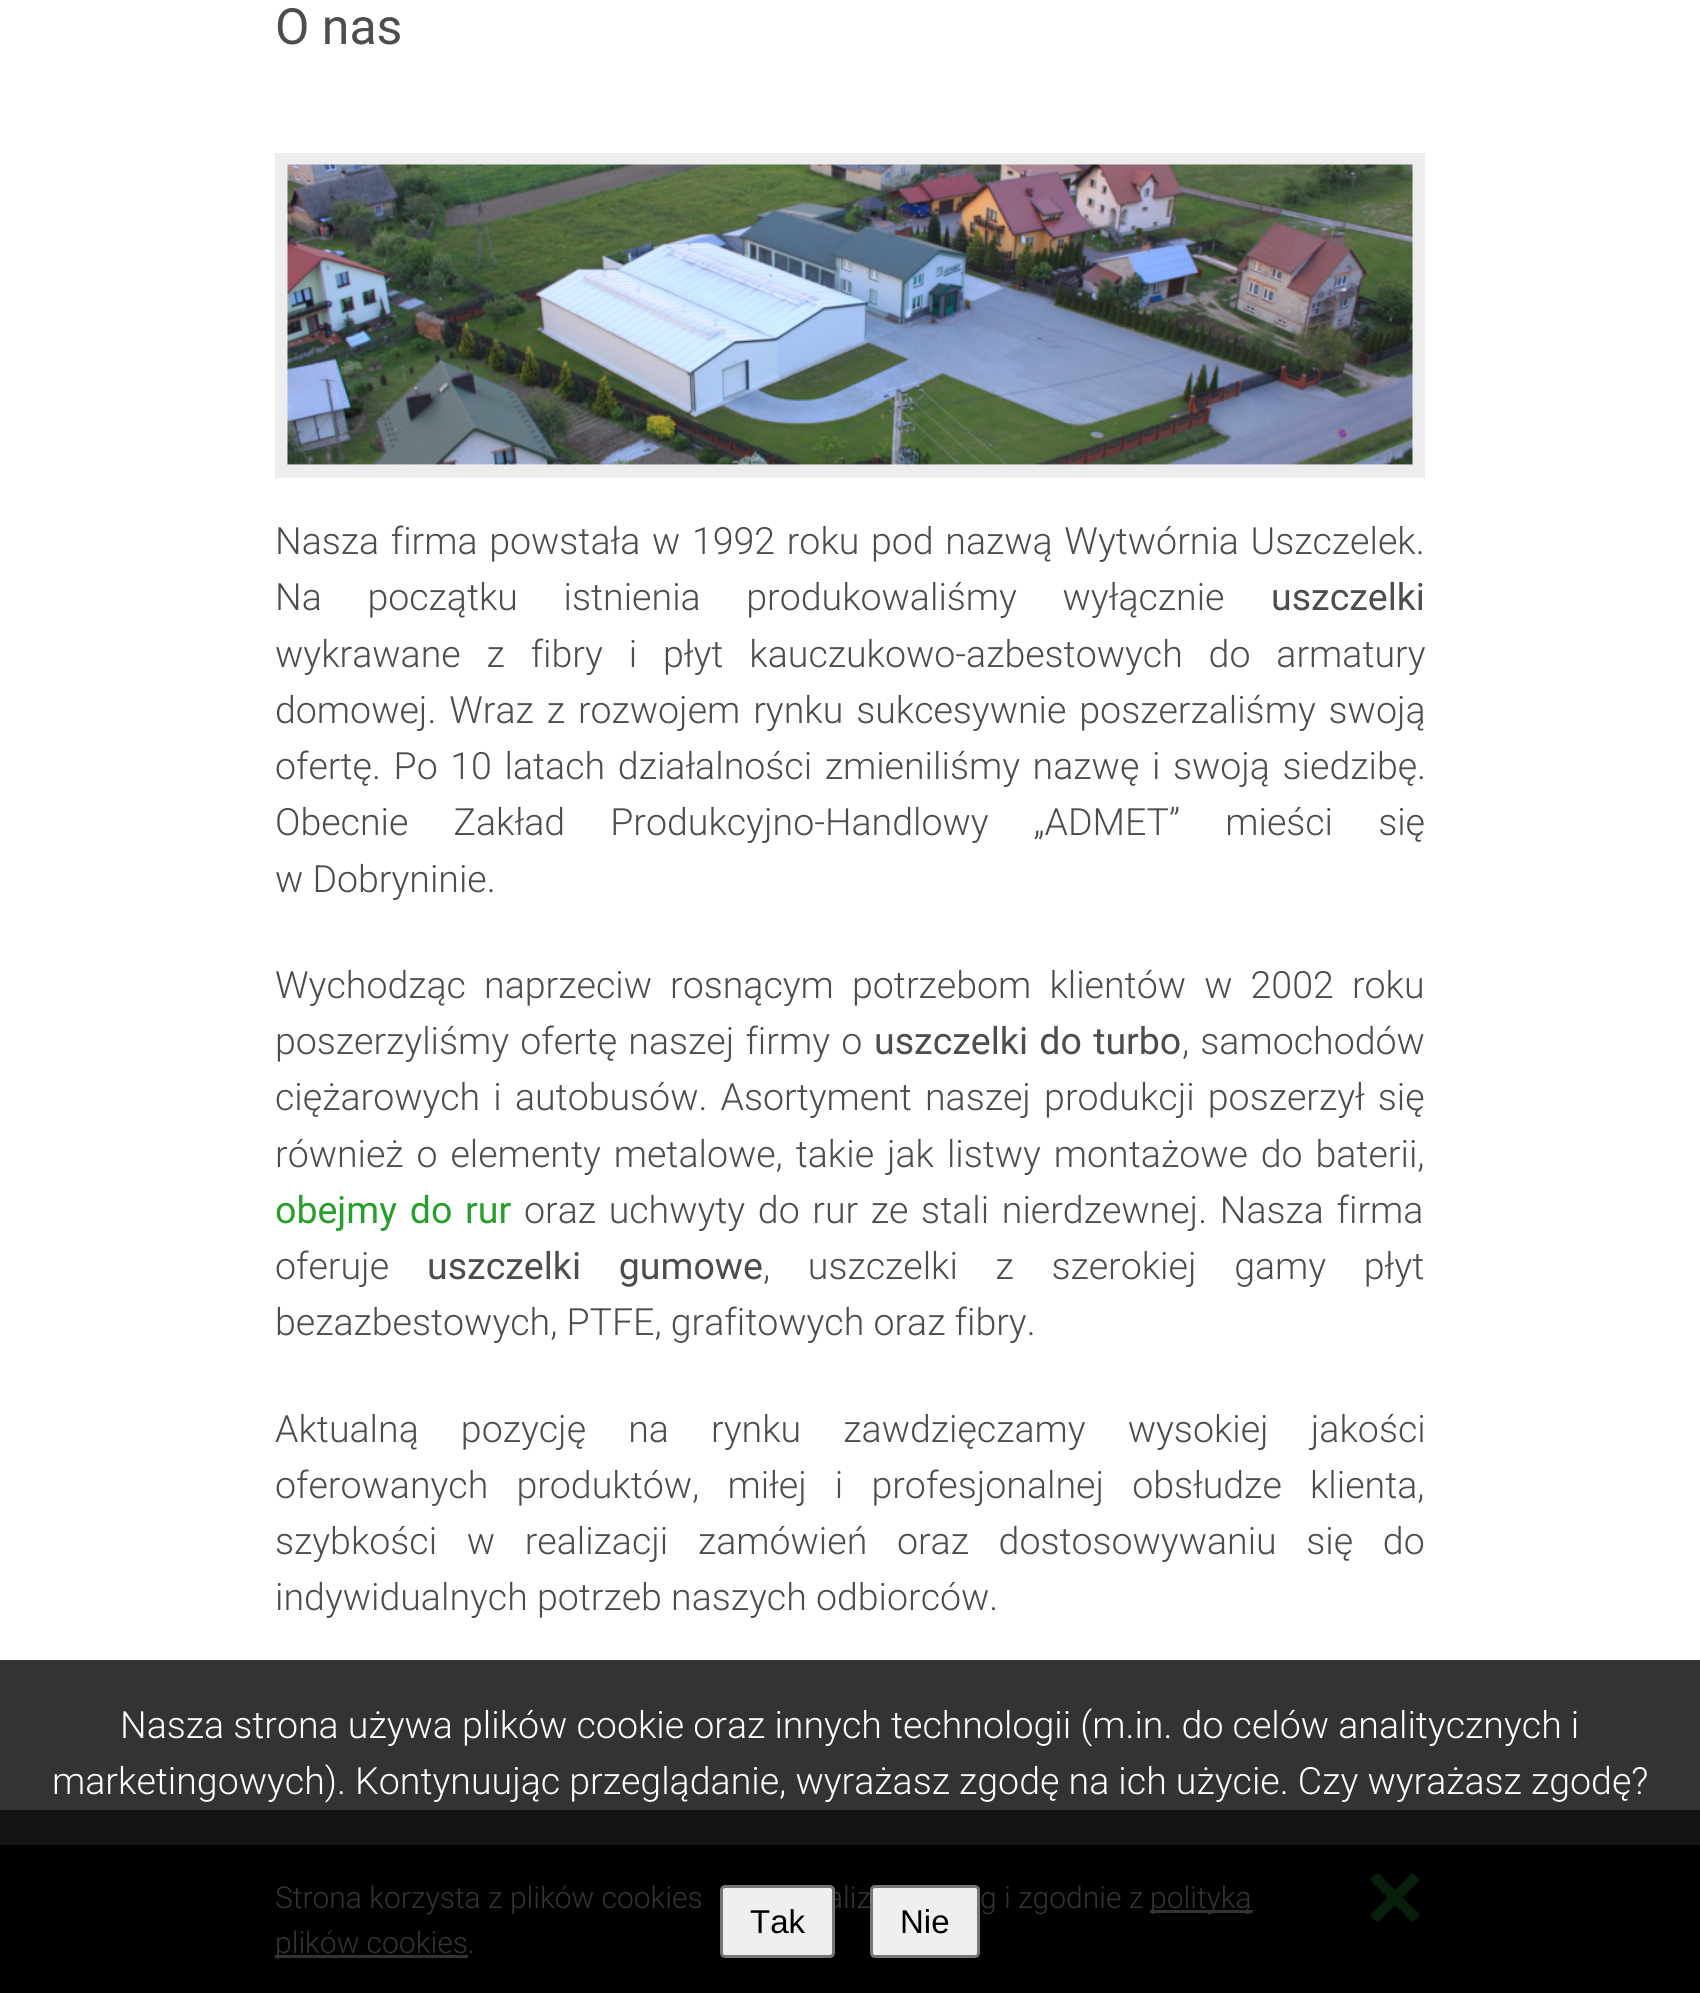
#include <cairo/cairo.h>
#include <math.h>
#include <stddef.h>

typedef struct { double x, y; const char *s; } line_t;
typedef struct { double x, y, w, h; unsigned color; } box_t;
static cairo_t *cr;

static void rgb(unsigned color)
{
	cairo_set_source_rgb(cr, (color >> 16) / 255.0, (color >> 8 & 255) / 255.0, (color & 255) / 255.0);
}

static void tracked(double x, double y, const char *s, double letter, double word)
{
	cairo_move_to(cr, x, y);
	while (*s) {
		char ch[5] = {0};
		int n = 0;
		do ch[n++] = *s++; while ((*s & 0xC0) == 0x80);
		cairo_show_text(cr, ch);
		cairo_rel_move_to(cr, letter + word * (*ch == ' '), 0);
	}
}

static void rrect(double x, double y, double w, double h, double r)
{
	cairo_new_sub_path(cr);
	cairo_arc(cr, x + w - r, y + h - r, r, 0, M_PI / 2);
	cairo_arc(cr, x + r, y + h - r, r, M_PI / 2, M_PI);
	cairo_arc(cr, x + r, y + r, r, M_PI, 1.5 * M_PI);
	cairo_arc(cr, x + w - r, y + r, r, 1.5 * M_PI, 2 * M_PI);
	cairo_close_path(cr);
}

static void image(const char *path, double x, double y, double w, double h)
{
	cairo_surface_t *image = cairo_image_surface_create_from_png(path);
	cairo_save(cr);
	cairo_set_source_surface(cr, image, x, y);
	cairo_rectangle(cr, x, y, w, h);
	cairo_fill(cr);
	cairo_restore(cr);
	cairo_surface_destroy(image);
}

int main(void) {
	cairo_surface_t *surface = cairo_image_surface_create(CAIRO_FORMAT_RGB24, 1700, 1993);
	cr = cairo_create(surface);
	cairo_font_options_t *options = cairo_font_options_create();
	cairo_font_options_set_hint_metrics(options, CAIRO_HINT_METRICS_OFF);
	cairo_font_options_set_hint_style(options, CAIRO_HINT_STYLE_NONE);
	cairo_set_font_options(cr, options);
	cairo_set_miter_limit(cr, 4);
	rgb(0xffffff);
	cairo_paint(cr);
	rgb(0x333333);
	cairo_rectangle(cr, 0, 1660, 1700, 150);
	cairo_fill(cr);
	cairo_rectangle(cr, 281.5, 159.5, 1137, 312);
	rgb(0xededed);
	cairo_set_line_width(cr, 13);
	cairo_stroke(cr);
	image("img/1.png", 287, 164, 1126, 301);
	{
		static const box_t items[] = {
			{0, 1810, 1700, 35, 0x141414},
			{0, 1845, 1700, 148, 0x000000},
			{1150, 1910, 103, 3, 0x333333},
			{275, 1955, 193, 3, 0x333333},
		};
		for (size_t i = 0; i < sizeof items / sizeof *items; i++) {
			rgb(items[i].color);
			cairo_rectangle(cr, items[i].x, items[i].y, items[i].w, items[i].h);
			cairo_fill(cr);
		}
	}
	rgb(0x082009);
	cairo_new_path(cr);
	cairo_move_to(cr, 1420, 1880);
	cairo_line_to(cr, 1378, 1922);
	cairo_curve_to(cr, 1375, 1920, 1372, 1918, 1370, 1915);
	cairo_line_to(cr, 1412, 1873);
	cairo_curve_to(cr, 1415, 1875, 1418, 1877, 1420, 1880);
	cairo_close_path(cr);
	cairo_fill(cr);
	cairo_new_path(cr);
	cairo_move_to(cr, 1412, 1922);
	cairo_line_to(cr, 1370, 1880);
	cairo_curve_to(cr, 1372, 1877, 1375, 1875, 1378, 1873);
	cairo_line_to(cr, 1420, 1915);
	cairo_curve_to(cr, 1418, 1918, 1415, 1920, 1412, 1922);
	cairo_close_path(cr);
	cairo_fill(cr);
	cairo_select_font_face(cr, "Roboto", CAIRO_FONT_SLANT_NORMAL, CAIRO_FONT_WEIGHT_NORMAL);
	cairo_set_font_size(cr, 50);
	rgb(0x4d4d4d);
	cairo_move_to(cr, 275, 44);
	cairo_show_text(cr, "O nas");
	cairo_select_font_face(cr, "Roboto Light", CAIRO_FONT_SLANT_NORMAL, CAIRO_FONT_WEIGHT_NORMAL);
	cairo_set_font_size(cr, 37.5);
	tracked(275, 554, "Nasza firma powstała w 1992 roku pod nazwą Wytwórnia Uszczelek.", 0, 2.5);
	tracked(275, 610, "Na początku istnienia produkowaliśmy wyłącznie", 0, 36.5);
	cairo_select_font_face(cr, "Roboto", CAIRO_FONT_SLANT_NORMAL, CAIRO_FONT_WEIGHT_NORMAL);
	cairo_move_to(cr, 1271, 610);
	cairo_show_text(cr, "uszczelki");
	cairo_select_font_face(cr, "Roboto Light", CAIRO_FONT_SLANT_NORMAL, CAIRO_FONT_WEIGHT_NORMAL);
	tracked(275, 667, "wykrawane z fibry i płyt kauczukowo-azbestowych do armatury", 0, 16.75);
	tracked(275, 723, "domowej. Wraz z rozwojem rynku sukcesywnie poszerzaliśmy swoją", 0, 3.75);
	tracked(275, 779, "ofertę. Po 10 latach działalności zmieniliśmy nazwę i swoją siedzibę.", 0, 3.5);
	tracked(275, 835, "Obecnie Zakład Produkcyjno-Handlowy „ADMET” mieści się", 0, 36);
	cairo_move_to(cr, 275, 892);
	cairo_show_text(cr, "w Dobryninie.");
	tracked(275, 998, "Wychodząc naprzeciw rosnącym potrzebom klientów w 2002 roku", 0, 9);
	tracked(275, 1054, "poszerzyliśmy ofertę naszej firmy o", 0, 2);
	cairo_select_font_face(cr, "Roboto", CAIRO_FONT_SLANT_NORMAL, CAIRO_FONT_WEIGHT_NORMAL);
	tracked(874, 1054, "uszczelki do turbo", 0, 2);
	cairo_select_font_face(cr, "Roboto Light", CAIRO_FONT_SLANT_NORMAL, CAIRO_FONT_WEIGHT_NORMAL);
	tracked(1182, 1054, ", samochodów", 0, 2);
	tracked(275, 1110, "ciężarowych i autobusów. Asortyment naszej produkcji poszerzył się", 0, 4);
	tracked(275, 1167, "również o elementy metalowe, takie jak listwy montażowe do baterii,", 0, 3.75);
	cairo_select_font_face(cr, "Roboto", CAIRO_FONT_SLANT_NORMAL, CAIRO_FONT_WEIGHT_NORMAL);
	rgb(0x299f2b);
	tracked(275, 1223, "obejmy do rur", 0, 3.5);
	cairo_select_font_face(cr, "Roboto Light", CAIRO_FONT_SLANT_NORMAL, CAIRO_FONT_WEIGHT_NORMAL);
	rgb(0x4d4d4d);
	tracked(524, 1223, "oraz uchwyty do rur ze stali nierdzewnej. Nasza firma", 0, 3.5);
	cairo_move_to(cr, 275, 1279);
	cairo_show_text(cr, "oferuje");
	cairo_select_font_face(cr, "Roboto", CAIRO_FONT_SLANT_NORMAL, CAIRO_FONT_WEIGHT_NORMAL);
	tracked(427, 1279, "uszczelki gumowe", 0, 28.5);
	cairo_select_font_face(cr, "Roboto Light", CAIRO_FONT_SLANT_NORMAL, CAIRO_FONT_WEIGHT_NORMAL);
	tracked(763, 1279, ", uszczelki z szerokiej gamy płyt", 0, 28.5);
	cairo_move_to(cr, 275, 1335);
	cairo_show_text(cr, "bezazbestowych, PTFE, grafitowych oraz fibry.");
	tracked(275, 1442, "Aktualną pozycję na rynku zawdzięczamy wysokiej jakości", 0, 33);
	tracked(275, 1498, "oferowanych produktów, miłej i profesjonalnej obsłudze klienta,", 0, 19);
	tracked(275, 1554, "szybkości w realizacji zamówień oraz dostosowywaniu się do", 0, 20.5);
	cairo_move_to(cr, 275, 1610);
	cairo_show_text(cr, "indywidualnych potrzeb naszych odbiorców.");
	rgb(0xffffff);
	cairo_move_to(cr, 120, 1738);
	cairo_show_text(cr, "Nasza strona używa plików cookie oraz innych technologii (m.in. do celów analitycznych i");
	cairo_move_to(cr, 52, 1794);
	cairo_show_text(cr, "marketingowych). Kontynuując przeglądanie, wyrażasz zgodę na ich użycie. Czy wyrażasz zgodę?");
	cairo_set_font_size(cr, 30);
	rgb(0x333333);
	cairo_move_to(cr, 275, 1908);
	cairo_show_text(cr, "Strona korzysta z plików cookies");
	cairo_move_to(cr, 827, 1908);
	cairo_show_text(cr, "aliz");
	rgb(0xefefef);
	rrect(871.5, 1886.5, 107, 70, 3.5);
	cairo_fill_preserve(cr);
	rgb(0x767676);
	cairo_set_line_width(cr, 3);
	cairo_stroke(cr);
	cairo_select_font_face(cr, "Liberation Sans", CAIRO_FONT_SLANT_NORMAL, CAIRO_FONT_WEIGHT_NORMAL);
	cairo_set_font_size(cr, 33);
	rgb(0x000000);
	cairo_move_to(cr, 900, 1933);
	cairo_show_text(cr, "Nie");
	rgb(0xefefef);
	rrect(721.5, 1886.5, 112, 70, 3.5);
	cairo_fill_preserve(cr);
	rgb(0x767676);
	cairo_stroke(cr);
	rgb(0x000000);
	cairo_move_to(cr, 750, 1933);
	cairo_show_text(cr, "Tak");
	cairo_select_font_face(cr, "Roboto Light", CAIRO_FONT_SLANT_NORMAL, CAIRO_FONT_WEIGHT_NORMAL);
	cairo_set_font_size(cr, 30);
	rgb(0x333333);
	{
		static const line_t items[] = {
			{980, 1908, "g i zgodnie z"},
			{1150, 1908, "polityką"},
			{275, 1953, "plików cookies."},
		};
		for (size_t i = 0; i < sizeof items / sizeof *items; i++) {
			cairo_move_to(cr, items[i].x, items[i].y);
			cairo_show_text(cr, items[i].s);
		}
	}
	cairo_surface_write_to_png(surface, "page.png");
	cairo_font_options_destroy(options);
	cairo_destroy(cr);
	cairo_surface_destroy(surface);
	return 0;
}
